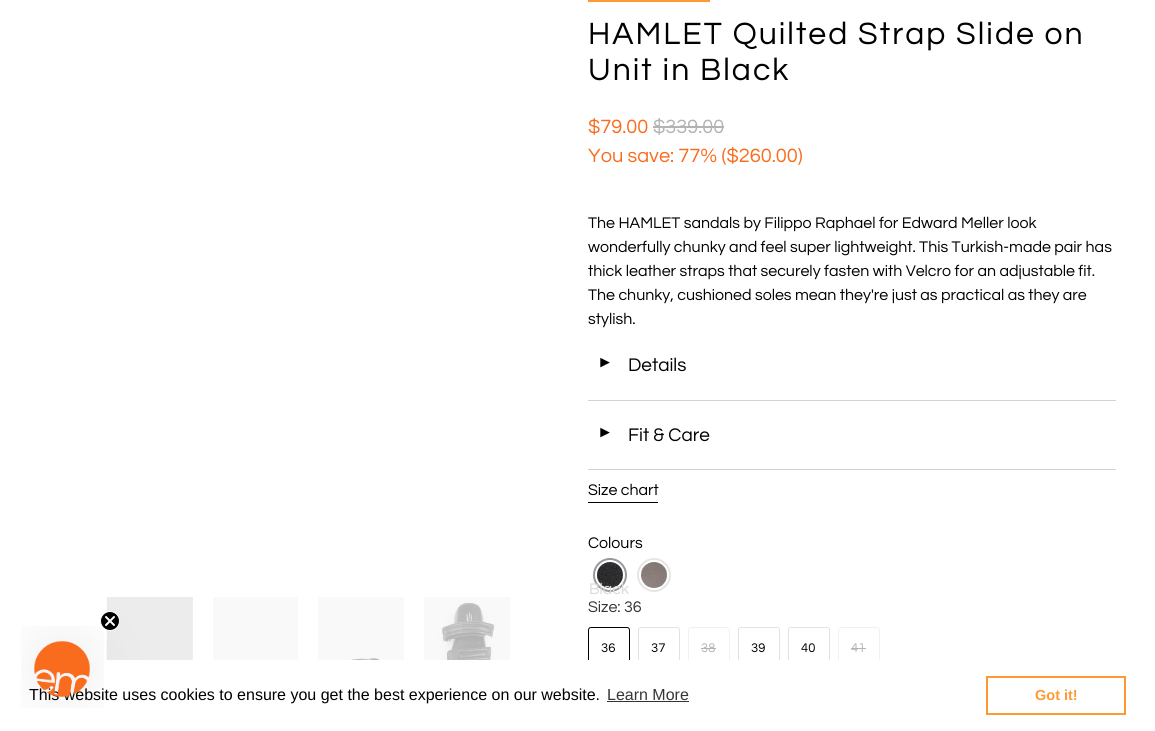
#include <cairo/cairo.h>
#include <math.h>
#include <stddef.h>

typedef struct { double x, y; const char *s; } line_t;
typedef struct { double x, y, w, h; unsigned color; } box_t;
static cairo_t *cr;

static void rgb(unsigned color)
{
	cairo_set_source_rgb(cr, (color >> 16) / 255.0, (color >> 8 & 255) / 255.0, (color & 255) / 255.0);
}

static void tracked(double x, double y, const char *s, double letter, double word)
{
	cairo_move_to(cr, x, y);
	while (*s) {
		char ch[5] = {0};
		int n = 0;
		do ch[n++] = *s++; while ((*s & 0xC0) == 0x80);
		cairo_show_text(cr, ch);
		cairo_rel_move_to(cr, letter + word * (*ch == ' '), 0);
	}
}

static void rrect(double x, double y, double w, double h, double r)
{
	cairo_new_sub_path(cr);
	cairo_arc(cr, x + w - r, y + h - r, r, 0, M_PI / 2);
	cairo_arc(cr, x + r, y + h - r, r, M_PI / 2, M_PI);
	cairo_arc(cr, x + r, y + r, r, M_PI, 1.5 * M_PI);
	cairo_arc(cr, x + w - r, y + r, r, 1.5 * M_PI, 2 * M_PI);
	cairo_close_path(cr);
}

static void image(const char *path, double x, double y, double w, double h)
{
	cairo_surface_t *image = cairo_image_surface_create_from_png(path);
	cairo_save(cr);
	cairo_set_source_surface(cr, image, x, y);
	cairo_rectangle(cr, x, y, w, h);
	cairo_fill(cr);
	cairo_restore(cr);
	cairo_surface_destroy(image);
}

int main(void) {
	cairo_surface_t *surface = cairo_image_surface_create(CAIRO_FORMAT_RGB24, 1155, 731);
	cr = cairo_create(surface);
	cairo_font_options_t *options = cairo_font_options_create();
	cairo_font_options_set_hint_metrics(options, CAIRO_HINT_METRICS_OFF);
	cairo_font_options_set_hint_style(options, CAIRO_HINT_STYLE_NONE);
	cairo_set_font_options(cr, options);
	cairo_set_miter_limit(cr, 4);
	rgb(0xffffff);
	cairo_paint(cr);
	image("img/3.png", 106, 597, 87, 63);
	image("img/4.png", 213, 597, 85, 63);
	image("img/5.png", 318, 597, 86, 63);
	image("img/6.png", 424, 597, 86, 63);
	{
		static const box_t items[] = {
			{588, 0, 122, 2, 0xff9933},
			{653, 126, 71, 2, 0xb3b3b3},
			{588, 400, 528, 1, 0xd3d3d3},
			{588, 469, 528, 1, 0xd3d3d3},
			{588, 502, 70, 1, 0x000000},
		};
		for (size_t i = 0; i < sizeof items / sizeof *items; i++) {
			rgb(items[i].color);
			cairo_rectangle(cr, items[i].x, items[i].y, items[i].w, items[i].h);
			cairo_fill(cr);
		}
	}
	cairo_arc(cr, 610, 575, 16, 0, 2 * M_PI);
	rgb(0x999999);
	cairo_stroke(cr);
	image("img/7.png", 597, 562, 26, 26);
	cairo_arc(cr, 654, 575, 16, 0, 2 * M_PI);
	rgb(0xe6e6e6);
	cairo_stroke(cr);
	image("img/8.png", 641, 562, 26, 26);
	rrect(588.5, 627.5, 41, 41, 2.5);
	rgb(0x000000);
	cairo_set_line_width(cr, 1);
	cairo_stroke(cr);
	rrect(638.5, 627.5, 41, 41, 2.5);
	rgb(0xe2e2e2);
	cairo_stroke(cr);
	rrect(688.5, 627.5, 41, 41, 2.5);
	rgb(0xf1f1f1);
	cairo_stroke(cr);
	rgb(0xb3b3b3);
	cairo_rectangle(cr, 701, 648, 15, 1);
	cairo_fill(cr);
	rrect(738.5, 627.5, 41, 41, 2.5);
	rgb(0xe2e2e2);
	cairo_stroke(cr);
	rrect(788.5, 627.5, 41, 41, 2.5);
	cairo_stroke(cr);
	rrect(838.5, 627.5, 41, 41, 2.5);
	rgb(0xf1f1f1);
	cairo_stroke(cr);
	{
		static const box_t items[] = {
			{851, 648, 15, 1, 0xb3b3b3},
			{588, 660, 292, 9, 0xffffff},
			{607, 701, 82, 1, 0x333333},
		};
		for (size_t i = 0; i < sizeof items / sizeof *items; i++) {
			rgb(items[i].color);
			cairo_rectangle(cr, items[i].x, items[i].y, items[i].w, items[i].h);
			cairo_fill(cr);
		}
	}
	cairo_rectangle(cr, 987, 677, 138, 37);
	rgb(0xff9933);
	cairo_set_line_width(cr, 2);
	cairo_stroke(cr);
	cairo_select_font_face(cr, "Questrial", CAIRO_FONT_SLANT_NORMAL, CAIRO_FONT_WEIGHT_NORMAL);
	cairo_set_font_size(cr, 32);
	rgb(0x000000);
	tracked(588, 44, "HAMLET Quilted Strap Slide on", 2, 0);
	tracked(588, 80, "Unit in Black", 2, 0);
	cairo_set_font_size(cr, 20);
	rgb(0xf96c1e);
	cairo_move_to(cr, 588, 133);
	cairo_show_text(cr, "$79.00");
	rgb(0xb3b3b3);
	cairo_move_to(cr, 653, 133);
	cairo_show_text(cr, "$339.00");
	rgb(0xf96c1e);
	cairo_move_to(cr, 588, 162);
	cairo_show_text(cr, "You save: 77% ($260.00)");
	cairo_set_font_size(cr, 16);
	rgb(0x000000);
	{
		static const line_t items[] = {
			{588, 228, "The HAMLET sandals by Filippo Raphael for Edward Meller look"},
			{588, 252, "wonderfully chunky and feel super lightweight. This Turkish-made pair has"},
			{588, 276, "thick leather straps that securely fasten with Velcro for an adjustable fit."},
			{588, 300, "The chunky, cushioned soles mean they're just as practical as they are"},
			{588, 324, "stylish."},
		};
		for (size_t i = 0; i < sizeof items / sizeof *items; i++) {
			cairo_move_to(cr, items[i].x, items[i].y);
			cairo_show_text(cr, items[i].s);
		}
	}
	cairo_select_font_face(cr, "Liberation Sans", CAIRO_FONT_SLANT_NORMAL, CAIRO_FONT_WEIGHT_NORMAL);
	cairo_save(cr);
	cairo_translate(cr, 613, 358);
	cairo_rotate(cr, 180 * M_PI / 180);
	cairo_move_to(cr, 0, 0);
	cairo_show_text(cr, "◄");
	cairo_restore(cr);
	cairo_select_font_face(cr, "Questrial", CAIRO_FONT_SLANT_NORMAL, CAIRO_FONT_WEIGHT_NORMAL);
	cairo_set_font_size(cr, 19);
	cairo_move_to(cr, 628, 371);
	cairo_show_text(cr, "Details");
	cairo_select_font_face(cr, "Liberation Sans", CAIRO_FONT_SLANT_NORMAL, CAIRO_FONT_WEIGHT_NORMAL);
	cairo_set_font_size(cr, 16);
	cairo_save(cr);
	cairo_translate(cr, 613, 428);
	cairo_rotate(cr, 180 * M_PI / 180);
	cairo_move_to(cr, 0, 0);
	cairo_show_text(cr, "◄");
	cairo_restore(cr);
	cairo_select_font_face(cr, "Questrial", CAIRO_FONT_SLANT_NORMAL, CAIRO_FONT_WEIGHT_NORMAL);
	cairo_set_font_size(cr, 19);
	cairo_move_to(cr, 628, 441);
	cairo_show_text(cr, "Fit & Care");
	cairo_set_font_size(cr, 16);
	cairo_move_to(cr, 588, 495);
	cairo_show_text(cr, "Size chart");
	cairo_move_to(cr, 588, 548);
	cairo_show_text(cr, "Colours");
	rgb(0xdadada);
	cairo_move_to(cr, 589, 594);
	cairo_show_text(cr, "Black");
	rgb(0x363636);
	cairo_move_to(cr, 588, 612);
	cairo_show_text(cr, "Size: 36");
	cairo_set_font_size(cr, 13);
	rgb(0x000000);
	cairo_move_to(cr, 601, 652);
	cairo_show_text(cr, "36");
	cairo_move_to(cr, 651, 652);
	cairo_show_text(cr, "37");
	rgb(0xb3b3b3);
	cairo_move_to(cr, 701, 652);
	cairo_show_text(cr, "38");
	rgb(0x000000);
	cairo_move_to(cr, 751, 652);
	cairo_show_text(cr, "39");
	cairo_move_to(cr, 801, 652);
	cairo_show_text(cr, "40");
	rgb(0xb3b3b3);
	cairo_move_to(cr, 851, 652);
	cairo_show_text(cr, "41");
	cairo_select_font_face(cr, "Liberation Sans", CAIRO_FONT_SLANT_NORMAL, CAIRO_FONT_WEIGHT_NORMAL);
	cairo_set_font_size(cr, 16);
	rgb(0x000000);
	cairo_move_to(cr, 29, 700);
	cairo_show_text(cr, "This website uses cookies to ensure you get the best experience on our website.");
	image("img/2.png", 21, 626, 83, 82);
	image("img/1.png", 100, 611, 20, 20);
	rgb(0x363636);
	cairo_move_to(cr, 607, 700);
	cairo_show_text(cr, "Learn More");
	cairo_select_font_face(cr, "Liberation Sans", CAIRO_FONT_SLANT_NORMAL, CAIRO_FONT_WEIGHT_BOLD);
	cairo_set_font_size(cr, 14.5);
	rgb(0xff9933);
	cairo_move_to(cr, 1035, 700);
	cairo_show_text(cr, "Got it!");
	cairo_surface_write_to_png(surface, "page.png");
	cairo_font_options_destroy(options);
	cairo_destroy(cr);
	cairo_surface_destroy(surface);
	return 0;
}
